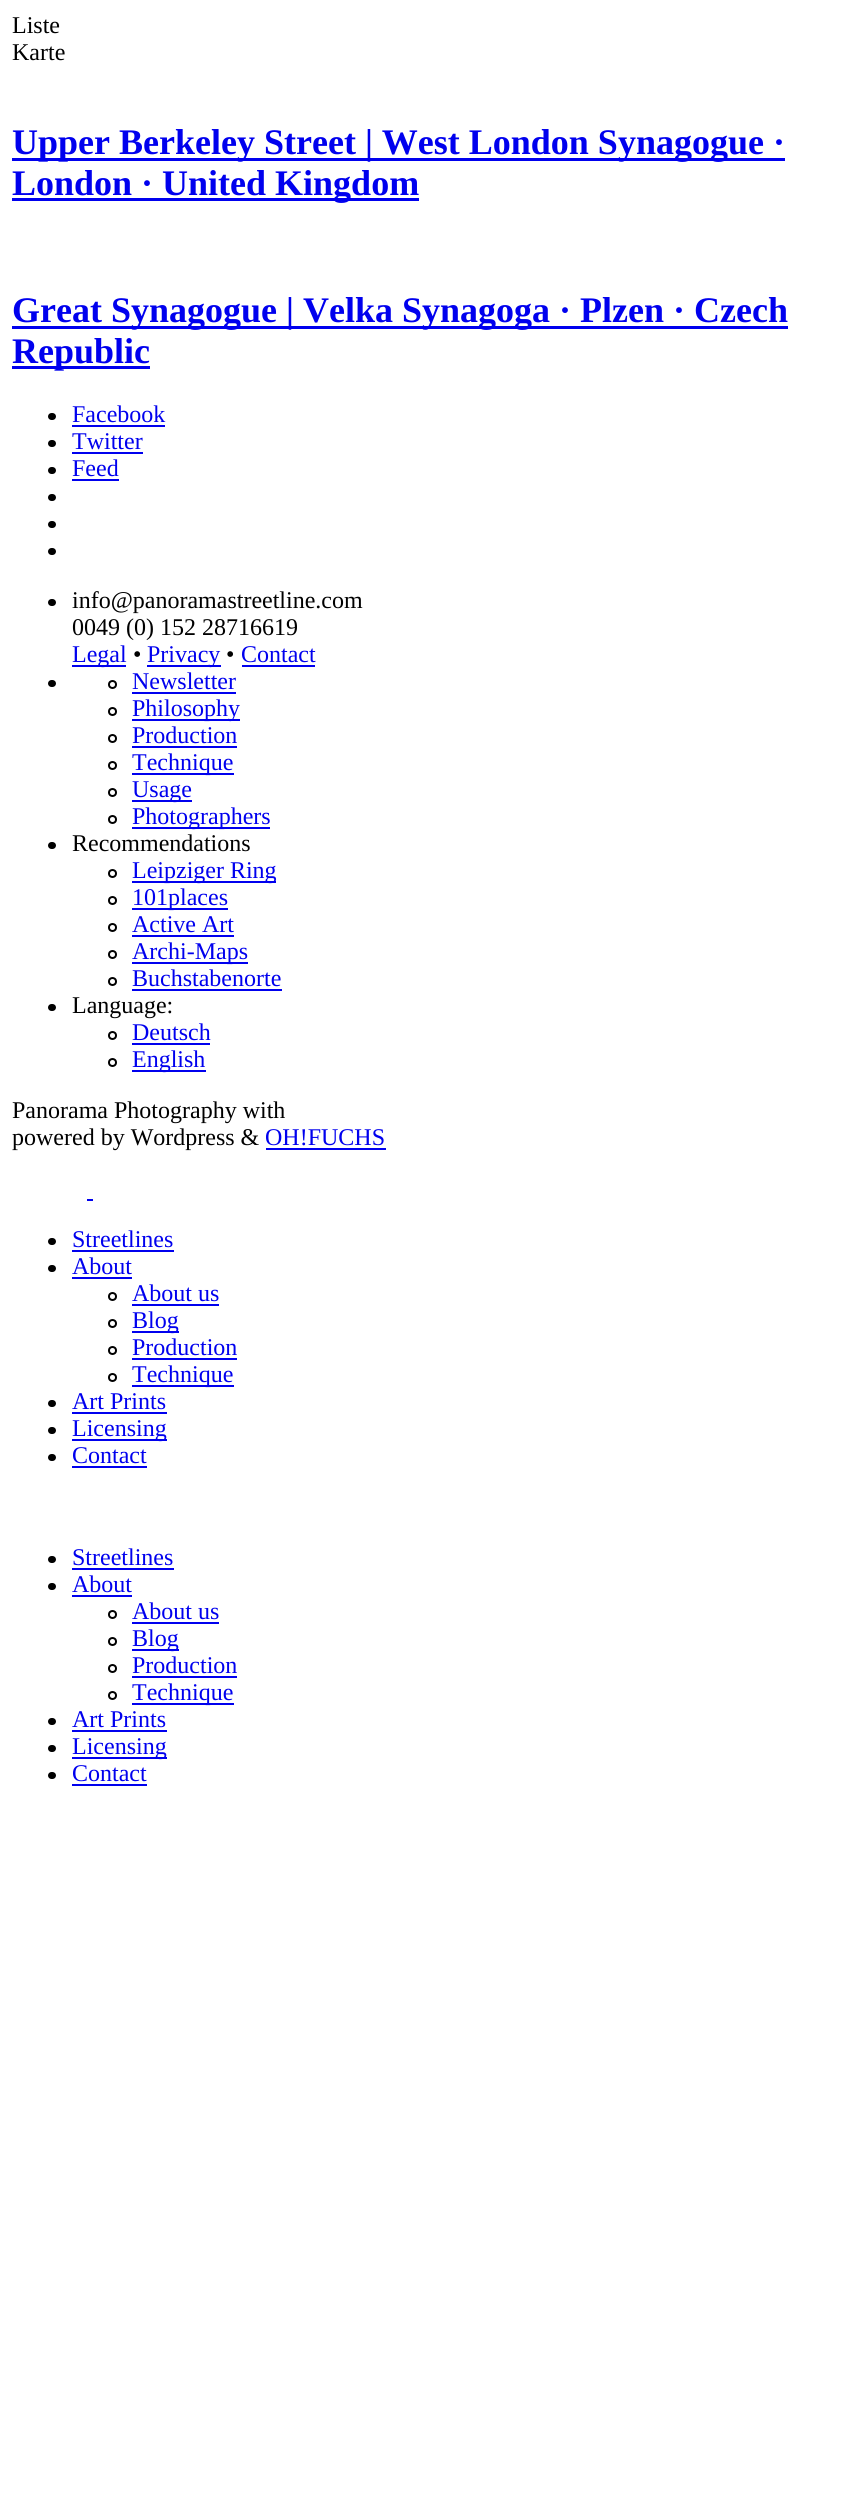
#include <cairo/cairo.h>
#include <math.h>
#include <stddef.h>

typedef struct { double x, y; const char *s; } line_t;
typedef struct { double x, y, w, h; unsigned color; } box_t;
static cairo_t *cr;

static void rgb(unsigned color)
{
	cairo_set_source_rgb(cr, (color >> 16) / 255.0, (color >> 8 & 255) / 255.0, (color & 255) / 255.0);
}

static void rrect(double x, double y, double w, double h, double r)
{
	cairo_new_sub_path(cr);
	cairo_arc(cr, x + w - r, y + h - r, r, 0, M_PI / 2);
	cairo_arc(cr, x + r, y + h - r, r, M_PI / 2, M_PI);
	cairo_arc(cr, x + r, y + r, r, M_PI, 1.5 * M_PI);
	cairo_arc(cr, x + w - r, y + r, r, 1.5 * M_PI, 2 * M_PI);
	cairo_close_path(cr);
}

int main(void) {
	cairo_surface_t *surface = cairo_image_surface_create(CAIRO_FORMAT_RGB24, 861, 2497);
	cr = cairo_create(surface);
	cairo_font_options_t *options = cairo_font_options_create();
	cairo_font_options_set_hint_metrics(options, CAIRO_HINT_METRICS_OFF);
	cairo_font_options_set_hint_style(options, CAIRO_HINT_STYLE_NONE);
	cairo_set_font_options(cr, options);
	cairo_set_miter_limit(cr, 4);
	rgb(0xffffff);
	cairo_paint(cr);
	{
		static const box_t items[] = {
			{12, 158, 773, 3, 0x0000ee},
			{12, 198, 407, 3, 0x0000ee},
			{12, 326, 776, 3, 0x0000ee},
			{12, 366, 138, 3, 0x0000ee},
		};
		for (size_t i = 0; i < sizeof items / sizeof *items; i++) {
			rgb(items[i].color);
			cairo_rectangle(cr, items[i].x, items[i].y, items[i].w, items[i].h);
			cairo_fill(cr);
		}
	}
	rgb(0x000000);
	rrect(48, 413, 8, 7, 3.5);
	cairo_fill(cr);
	rgb(0x0000ee);
	cairo_rectangle(cr, 72, 425, 93, 2);
	cairo_fill(cr);
	rgb(0x000000);
	rrect(48, 440, 8, 7, 3.5);
	cairo_fill(cr);
	rgb(0x0000ee);
	cairo_rectangle(cr, 72, 452, 71, 2);
	cairo_fill(cr);
	rgb(0x000000);
	rrect(48, 467, 8, 7, 3.5);
	cairo_fill(cr);
	rgb(0x0000ee);
	cairo_rectangle(cr, 72, 479, 47, 2);
	cairo_fill(cr);
	rgb(0x000000);
	rrect(48, 494, 8, 7, 3.5);
	cairo_fill(cr);
	rrect(48, 521, 8, 7, 3.5);
	cairo_fill(cr);
	rrect(48, 548, 8, 7, 3.5);
	cairo_fill(cr);
	rrect(48, 599, 8, 7, 3.5);
	cairo_fill(cr);
	{
		static const box_t items[] = {
			{72, 665, 54, 2, 0x0000ee},
			{147, 665, 74, 2, 0x0000ee},
			{242, 665, 73, 2, 0x0000ee},
		};
		for (size_t i = 0; i < sizeof items / sizeof *items; i++) {
			rgb(items[i].color);
			cairo_rectangle(cr, items[i].x, items[i].y, items[i].w, items[i].h);
			cairo_fill(cr);
		}
	}
	rgb(0x000000);
	rrect(48, 680, 8, 7, 3.5);
	cairo_fill(cr);
	cairo_arc(cr, 112.5, 684.5, 3.5, 0, 2 * M_PI);
	cairo_stroke(cr);
	rgb(0x0000ee);
	cairo_rectangle(cr, 132, 692, 104, 2);
	cairo_fill(cr);
	cairo_arc(cr, 112.5, 711.5, 3.5, 0, 2 * M_PI);
	rgb(0x000000);
	cairo_stroke(cr);
	rgb(0x0000ee);
	cairo_rectangle(cr, 132, 719, 108, 2);
	cairo_fill(cr);
	cairo_arc(cr, 112.5, 738.5, 3.5, 0, 2 * M_PI);
	rgb(0x000000);
	cairo_stroke(cr);
	rgb(0x0000ee);
	cairo_rectangle(cr, 132, 746, 105, 2);
	cairo_fill(cr);
	cairo_arc(cr, 112.5, 765.5, 3.5, 0, 2 * M_PI);
	rgb(0x000000);
	cairo_stroke(cr);
	rgb(0x0000ee);
	cairo_rectangle(cr, 132, 773, 102, 2);
	cairo_fill(cr);
	cairo_arc(cr, 112.5, 792.5, 3.5, 0, 2 * M_PI);
	rgb(0x000000);
	cairo_stroke(cr);
	rgb(0x0000ee);
	cairo_rectangle(cr, 132, 800, 60, 2);
	cairo_fill(cr);
	cairo_arc(cr, 112.5, 819.5, 3.5, 0, 2 * M_PI);
	rgb(0x000000);
	cairo_stroke(cr);
	rgb(0x0000ee);
	cairo_rectangle(cr, 132, 827, 138, 2);
	cairo_fill(cr);
	rgb(0x000000);
	rrect(48, 842, 8, 7, 3.5);
	cairo_fill(cr);
	cairo_arc(cr, 112.5, 873.5, 3.5, 0, 2 * M_PI);
	cairo_stroke(cr);
	rgb(0x0000ee);
	cairo_rectangle(cr, 132, 881, 144, 2);
	cairo_fill(cr);
	cairo_arc(cr, 112.5, 900.5, 3.5, 0, 2 * M_PI);
	rgb(0x000000);
	cairo_stroke(cr);
	rgb(0x0000ee);
	cairo_rectangle(cr, 132, 908, 96, 2);
	cairo_fill(cr);
	cairo_arc(cr, 112.5, 927.5, 3.5, 0, 2 * M_PI);
	rgb(0x000000);
	cairo_stroke(cr);
	rgb(0x0000ee);
	cairo_rectangle(cr, 132, 935, 102, 2);
	cairo_fill(cr);
	cairo_arc(cr, 112.5, 954.5, 3.5, 0, 2 * M_PI);
	rgb(0x000000);
	cairo_stroke(cr);
	rgb(0x0000ee);
	cairo_rectangle(cr, 132, 962, 116, 2);
	cairo_fill(cr);
	cairo_arc(cr, 112.5, 981.5, 3.5, 0, 2 * M_PI);
	rgb(0x000000);
	cairo_stroke(cr);
	rgb(0x0000ee);
	cairo_rectangle(cr, 132, 989, 150, 2);
	cairo_fill(cr);
	rgb(0x000000);
	rrect(48, 1004, 8, 7, 3.5);
	cairo_fill(cr);
	cairo_arc(cr, 112.5, 1035.5, 3.5, 0, 2 * M_PI);
	cairo_stroke(cr);
	rgb(0x0000ee);
	cairo_rectangle(cr, 132, 1043, 78, 2);
	cairo_fill(cr);
	cairo_arc(cr, 112.5, 1062.5, 3.5, 0, 2 * M_PI);
	rgb(0x000000);
	cairo_stroke(cr);
	{
		static const box_t items[] = {
			{132, 1070, 74, 2, 0x0000ee},
			{266, 1148, 120, 2, 0x0000ee},
			{87, 1199, 6, 2, 0x0000ee},
		};
		for (size_t i = 0; i < sizeof items / sizeof *items; i++) {
			rgb(items[i].color);
			cairo_rectangle(cr, items[i].x, items[i].y, items[i].w, items[i].h);
			cairo_fill(cr);
		}
	}
	rgb(0x000000);
	rrect(48, 1238, 8, 7, 3.5);
	cairo_fill(cr);
	rgb(0x0000ee);
	cairo_rectangle(cr, 72, 1250, 102, 2);
	cairo_fill(cr);
	rgb(0x000000);
	rrect(48, 1265, 8, 7, 3.5);
	cairo_fill(cr);
	rgb(0x0000ee);
	cairo_rectangle(cr, 72, 1277, 60, 2);
	cairo_fill(cr);
	cairo_arc(cr, 112.5, 1296.5, 3.5, 0, 2 * M_PI);
	rgb(0x000000);
	cairo_stroke(cr);
	rgb(0x0000ee);
	cairo_rectangle(cr, 132, 1304, 87, 2);
	cairo_fill(cr);
	cairo_arc(cr, 112.5, 1323.5, 3.5, 0, 2 * M_PI);
	rgb(0x000000);
	cairo_stroke(cr);
	rgb(0x0000ee);
	cairo_rectangle(cr, 132, 1331, 47, 2);
	cairo_fill(cr);
	cairo_arc(cr, 112.5, 1350.5, 3.5, 0, 2 * M_PI);
	rgb(0x000000);
	cairo_stroke(cr);
	rgb(0x0000ee);
	cairo_rectangle(cr, 132, 1358, 105, 2);
	cairo_fill(cr);
	cairo_arc(cr, 112.5, 1377.5, 3.5, 0, 2 * M_PI);
	rgb(0x000000);
	cairo_stroke(cr);
	rgb(0x0000ee);
	cairo_rectangle(cr, 132, 1385, 102, 2);
	cairo_fill(cr);
	rgb(0x000000);
	rrect(48, 1400, 8, 7, 3.5);
	cairo_fill(cr);
	rgb(0x0000ee);
	cairo_rectangle(cr, 72, 1412, 95, 2);
	cairo_fill(cr);
	rgb(0x000000);
	rrect(48, 1427, 8, 7, 3.5);
	cairo_fill(cr);
	rgb(0x0000ee);
	cairo_rectangle(cr, 72, 1439, 95, 2);
	cairo_fill(cr);
	rgb(0x000000);
	rrect(48, 1454, 8, 7, 3.5);
	cairo_fill(cr);
	rgb(0x0000ee);
	cairo_rectangle(cr, 72, 1466, 75, 2);
	cairo_fill(cr);
	rgb(0x000000);
	rrect(48, 1556, 8, 7, 3.5);
	cairo_fill(cr);
	rgb(0x0000ee);
	cairo_rectangle(cr, 72, 1568, 102, 2);
	cairo_fill(cr);
	rgb(0x000000);
	rrect(48, 1583, 8, 7, 3.5);
	cairo_fill(cr);
	rgb(0x0000ee);
	cairo_rectangle(cr, 72, 1595, 60, 2);
	cairo_fill(cr);
	cairo_arc(cr, 112.5, 1614.5, 3.5, 0, 2 * M_PI);
	rgb(0x000000);
	cairo_stroke(cr);
	rgb(0x0000ee);
	cairo_rectangle(cr, 132, 1622, 87, 2);
	cairo_fill(cr);
	cairo_arc(cr, 112.5, 1641.5, 3.5, 0, 2 * M_PI);
	rgb(0x000000);
	cairo_stroke(cr);
	rgb(0x0000ee);
	cairo_rectangle(cr, 132, 1649, 47, 2);
	cairo_fill(cr);
	cairo_arc(cr, 112.5, 1668.5, 3.5, 0, 2 * M_PI);
	rgb(0x000000);
	cairo_stroke(cr);
	rgb(0x0000ee);
	cairo_rectangle(cr, 132, 1676, 105, 2);
	cairo_fill(cr);
	cairo_arc(cr, 112.5, 1695.5, 3.5, 0, 2 * M_PI);
	rgb(0x000000);
	cairo_stroke(cr);
	rgb(0x0000ee);
	cairo_rectangle(cr, 132, 1703, 102, 2);
	cairo_fill(cr);
	rgb(0x000000);
	rrect(48, 1718, 8, 7, 3.5);
	cairo_fill(cr);
	rgb(0x0000ee);
	cairo_rectangle(cr, 72, 1730, 95, 2);
	cairo_fill(cr);
	rgb(0x000000);
	rrect(48, 1745, 8, 7, 3.5);
	cairo_fill(cr);
	rgb(0x0000ee);
	cairo_rectangle(cr, 72, 1757, 95, 2);
	cairo_fill(cr);
	rgb(0x000000);
	rrect(48, 1772, 8, 7, 3.5);
	cairo_fill(cr);
	rgb(0x0000ee);
	cairo_rectangle(cr, 72, 1784, 75, 2);
	cairo_fill(cr);
	cairo_select_font_face(cr, "Liberation Serif", CAIRO_FONT_SLANT_NORMAL, CAIRO_FONT_WEIGHT_NORMAL);
	cairo_set_font_size(cr, 24);
	rgb(0x000000);
	cairo_move_to(cr, 12, 33);
	cairo_show_text(cr, "Liste");
	cairo_move_to(cr, 12, 60);
	cairo_show_text(cr, "Karte");
	cairo_select_font_face(cr, "Liberation Serif", CAIRO_FONT_SLANT_NORMAL, CAIRO_FONT_WEIGHT_BOLD);
	cairo_set_font_size(cr, 36);
	rgb(0x0000ee);
	{
		static const line_t items[] = {
			{12, 154, "Upper Berkeley Street | West London Synagogue ·"},
			{12, 195, "London · United Kingdom"},
			{12, 322, "Great Synagogue | Velka Synagoga · Plzen · Czech"},
			{12, 363, "Republic"},
		};
		for (size_t i = 0; i < sizeof items / sizeof *items; i++) {
			cairo_move_to(cr, items[i].x, items[i].y);
			cairo_show_text(cr, items[i].s);
		}
	}
	cairo_select_font_face(cr, "Liberation Serif", CAIRO_FONT_SLANT_NORMAL, CAIRO_FONT_WEIGHT_NORMAL);
	cairo_set_font_size(cr, 24);
	{
		static const line_t items[] = {
			{72, 422, "Facebook"},
			{72, 449, "Twitter"},
			{72, 476, "Feed"},
		};
		for (size_t i = 0; i < sizeof items / sizeof *items; i++) {
			cairo_move_to(cr, items[i].x, items[i].y);
			cairo_show_text(cr, items[i].s);
		}
	}
	rgb(0x000000);
	cairo_move_to(cr, 72, 608);
	cairo_show_text(cr, "info@panoramastreetline.com");
	cairo_move_to(cr, 72, 635);
	cairo_show_text(cr, "0049 (0) 152 28716619");
	rgb(0x0000ee);
	cairo_move_to(cr, 72, 662);
	cairo_show_text(cr, "Legal");
	rgb(0x000000);
	cairo_move_to(cr, 133, 662);
	cairo_show_text(cr, "•");
	rgb(0x0000ee);
	cairo_move_to(cr, 147, 662);
	cairo_show_text(cr, "Privacy");
	rgb(0x000000);
	cairo_move_to(cr, 226, 662);
	cairo_show_text(cr, "•");
	rgb(0x0000ee);
	{
		static const line_t items[] = {
			{241, 662, "Contact"},
			{132, 689, "Newsletter"},
			{132, 716, "Philosophy"},
			{132, 743, "Production"},
			{132, 770, "Technique"},
			{132, 797, "Usage"},
			{132, 824, "Photographers"},
		};
		for (size_t i = 0; i < sizeof items / sizeof *items; i++) {
			cairo_move_to(cr, items[i].x, items[i].y);
			cairo_show_text(cr, items[i].s);
		}
	}
	rgb(0x000000);
	cairo_move_to(cr, 72, 851);
	cairo_show_text(cr, "Recommendations");
	rgb(0x0000ee);
	{
		static const line_t items[] = {
			{132, 878, "Leipziger Ring"},
			{132, 905, "101places"},
			{132, 932, "Active Art"},
			{132, 959, "Archi-Maps"},
			{132, 986, "Buchstabenorte"},
		};
		for (size_t i = 0; i < sizeof items / sizeof *items; i++) {
			cairo_move_to(cr, items[i].x, items[i].y);
			cairo_show_text(cr, items[i].s);
		}
	}
	rgb(0x000000);
	cairo_move_to(cr, 72, 1013);
	cairo_show_text(cr, "Language:");
	rgb(0x0000ee);
	cairo_move_to(cr, 132, 1040);
	cairo_show_text(cr, "Deutsch");
	cairo_move_to(cr, 132, 1067);
	cairo_show_text(cr, "English");
	rgb(0x000000);
	cairo_move_to(cr, 12, 1118);
	cairo_show_text(cr, "Panorama Photography with");
	cairo_move_to(cr, 12, 1145);
	cairo_show_text(cr, "powered by Wordpress &");
	rgb(0x0000ee);
	{
		static const line_t items[] = {
			{265, 1145, "OH!FUCHS"},
			{72, 1247, "Streetlines"},
			{72, 1274, "About"},
			{132, 1301, "About us"},
			{132, 1328, "Blog"},
			{132, 1355, "Production"},
			{132, 1382, "Technique"},
			{72, 1409, "Art Prints"},
			{72, 1436, "Licensing"},
			{72, 1463, "Contact"},
			{72, 1565, "Streetlines"},
			{72, 1592, "About"},
			{132, 1619, "About us"},
			{132, 1646, "Blog"},
			{132, 1673, "Production"},
			{132, 1700, "Technique"},
			{72, 1727, "Art Prints"},
			{72, 1754, "Licensing"},
			{72, 1781, "Contact"},
		};
		for (size_t i = 0; i < sizeof items / sizeof *items; i++) {
			cairo_move_to(cr, items[i].x, items[i].y);
			cairo_show_text(cr, items[i].s);
		}
	}
	cairo_surface_write_to_png(surface, "page.png");
	cairo_font_options_destroy(options);
	cairo_destroy(cr);
	cairo_surface_destroy(surface);
	return 0;
}
